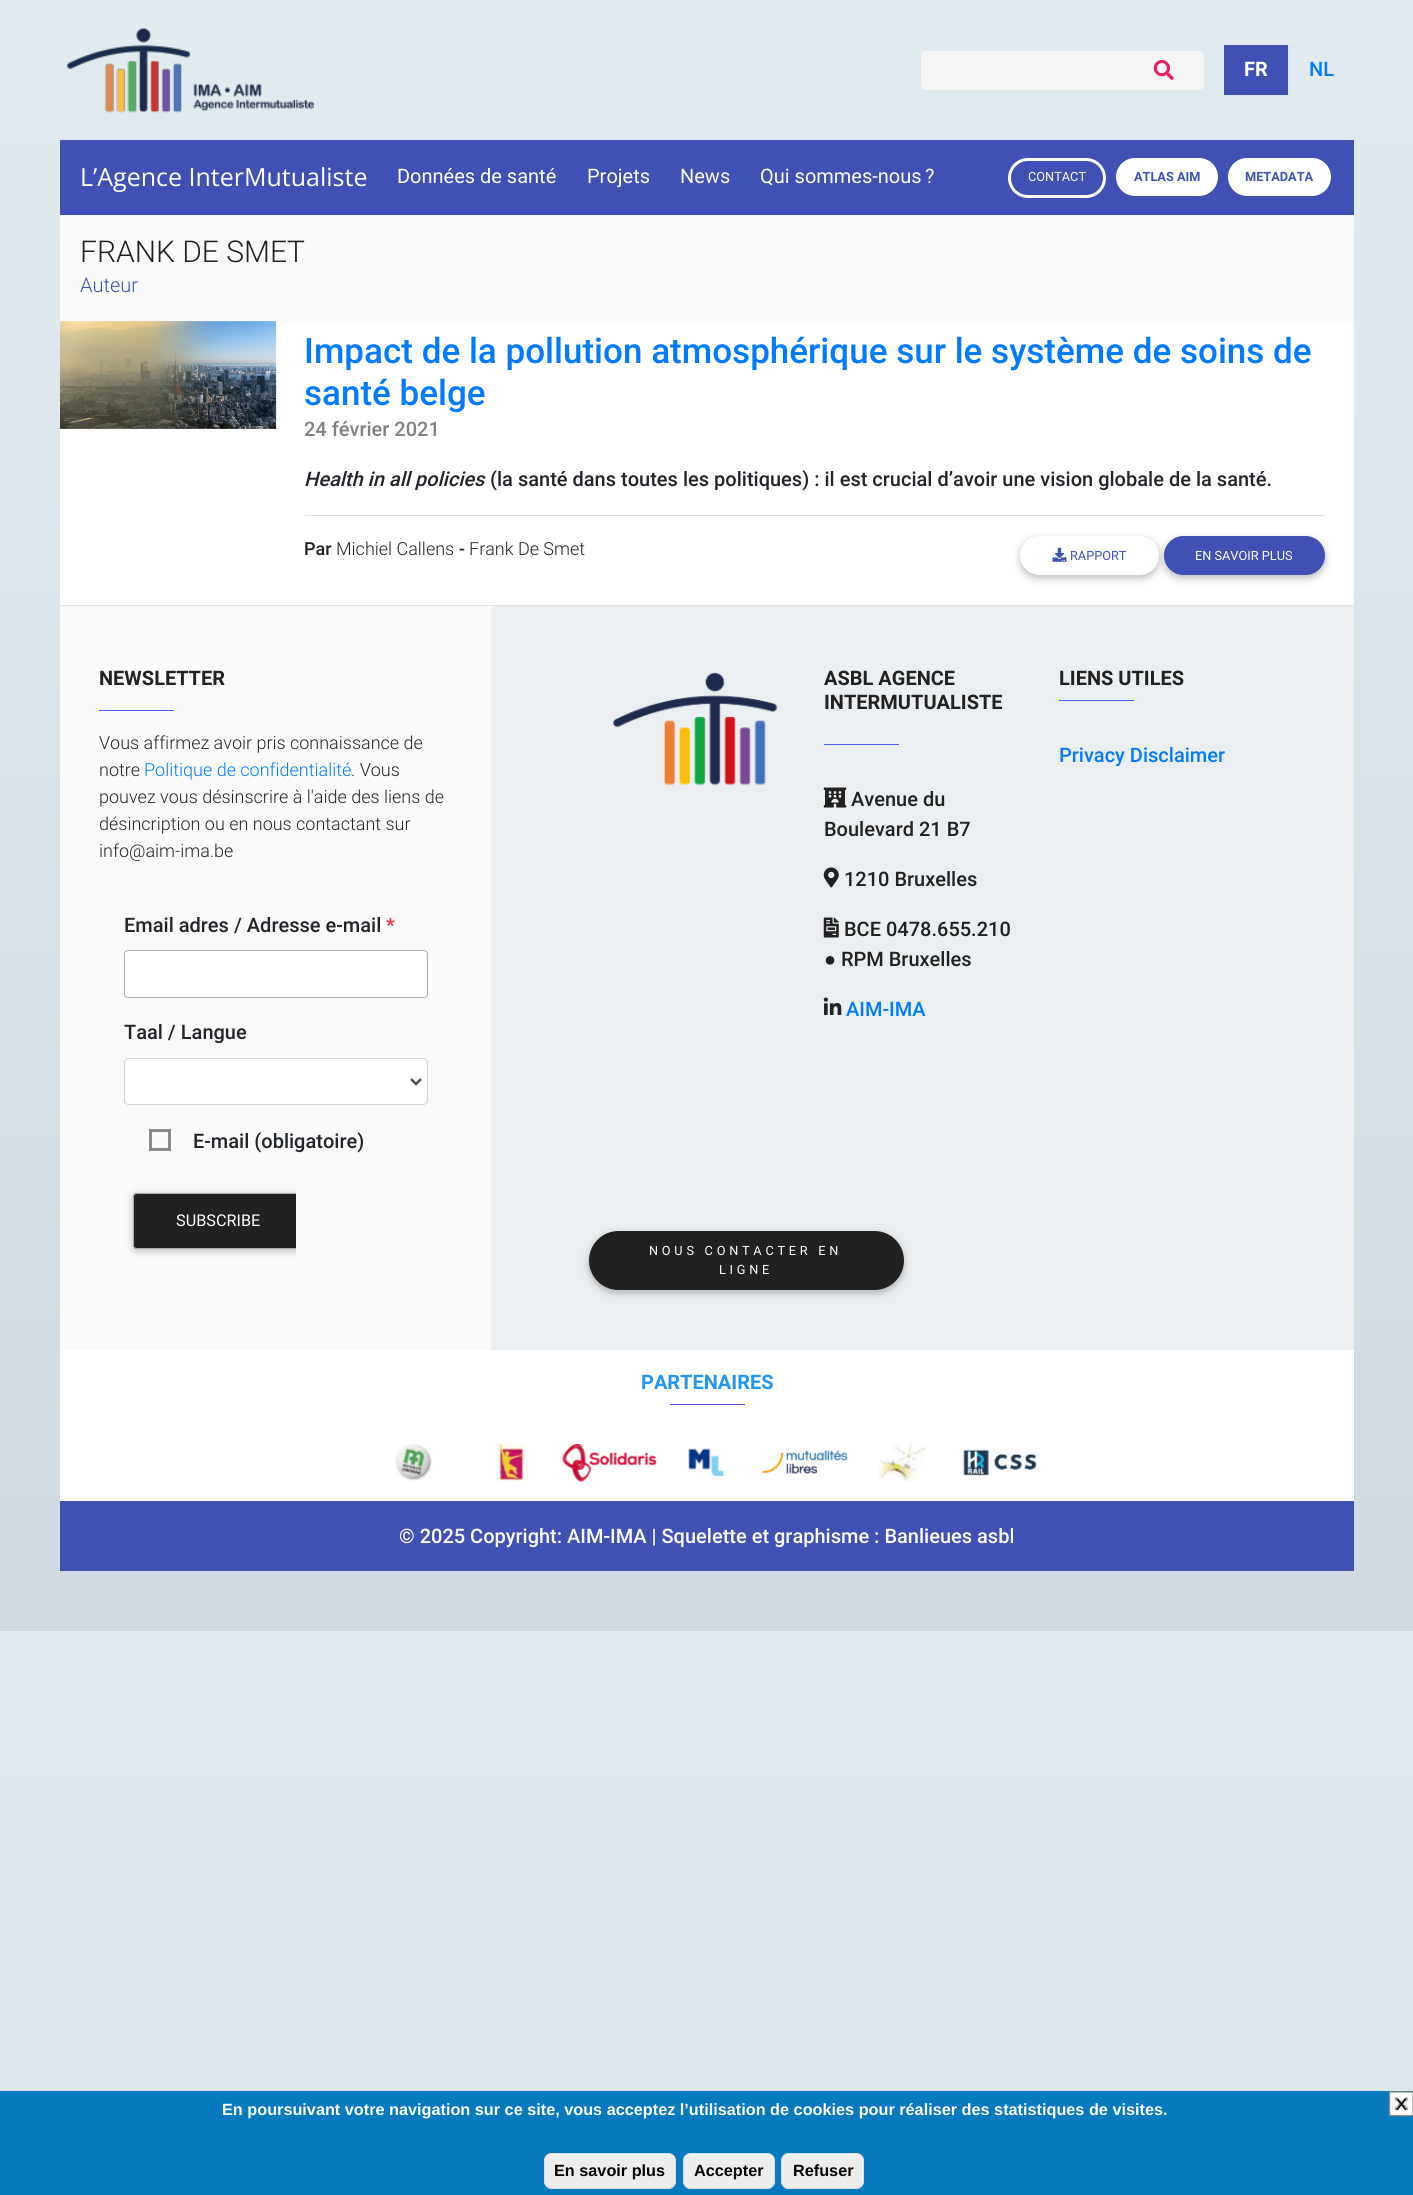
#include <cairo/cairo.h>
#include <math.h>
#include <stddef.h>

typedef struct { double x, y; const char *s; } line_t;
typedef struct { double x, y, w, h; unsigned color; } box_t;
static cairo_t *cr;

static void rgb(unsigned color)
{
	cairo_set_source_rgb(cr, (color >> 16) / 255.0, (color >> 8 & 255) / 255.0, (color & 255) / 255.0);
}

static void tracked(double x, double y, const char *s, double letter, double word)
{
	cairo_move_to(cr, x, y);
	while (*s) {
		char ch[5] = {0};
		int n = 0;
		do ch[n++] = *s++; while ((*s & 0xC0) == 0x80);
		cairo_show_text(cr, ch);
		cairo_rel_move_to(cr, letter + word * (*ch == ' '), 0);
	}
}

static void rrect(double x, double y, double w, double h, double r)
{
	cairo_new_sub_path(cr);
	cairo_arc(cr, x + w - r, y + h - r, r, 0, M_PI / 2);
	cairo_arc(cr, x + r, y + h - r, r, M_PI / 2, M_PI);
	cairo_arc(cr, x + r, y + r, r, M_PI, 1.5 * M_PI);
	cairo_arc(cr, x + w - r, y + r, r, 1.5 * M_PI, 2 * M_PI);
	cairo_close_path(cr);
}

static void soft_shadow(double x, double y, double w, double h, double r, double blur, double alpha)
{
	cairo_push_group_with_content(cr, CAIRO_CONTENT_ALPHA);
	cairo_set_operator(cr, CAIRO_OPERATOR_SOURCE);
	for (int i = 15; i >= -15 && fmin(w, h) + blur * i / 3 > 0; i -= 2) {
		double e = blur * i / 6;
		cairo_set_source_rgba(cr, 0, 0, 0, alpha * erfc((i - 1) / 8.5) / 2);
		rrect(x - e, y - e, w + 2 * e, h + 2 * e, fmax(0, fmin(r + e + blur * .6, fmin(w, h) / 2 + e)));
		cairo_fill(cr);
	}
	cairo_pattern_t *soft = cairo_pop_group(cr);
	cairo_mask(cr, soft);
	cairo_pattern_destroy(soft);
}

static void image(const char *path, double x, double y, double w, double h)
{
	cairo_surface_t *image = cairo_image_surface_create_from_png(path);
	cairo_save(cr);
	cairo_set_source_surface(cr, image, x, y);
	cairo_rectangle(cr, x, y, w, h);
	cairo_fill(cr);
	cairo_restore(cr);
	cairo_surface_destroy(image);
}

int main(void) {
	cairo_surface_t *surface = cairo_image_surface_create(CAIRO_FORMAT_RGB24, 1413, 2195);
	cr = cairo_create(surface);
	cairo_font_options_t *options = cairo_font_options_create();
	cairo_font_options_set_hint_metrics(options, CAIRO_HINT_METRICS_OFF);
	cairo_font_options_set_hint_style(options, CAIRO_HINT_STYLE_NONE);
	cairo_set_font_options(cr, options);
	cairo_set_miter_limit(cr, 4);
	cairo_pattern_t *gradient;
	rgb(0xffffff);
	cairo_paint(cr);
	gradient = cairo_pattern_create_linear(707, 1631, 707, 0);
	cairo_pattern_add_color_stop_rgba(gradient, 0, 0.812, 0.851, 0.875, 1);
	cairo_pattern_add_color_stop_rgba(gradient, 1, 0.886, 0.922, 0.941, 1);
	cairo_set_source(cr, gradient);
	cairo_pattern_destroy(gradient);
	cairo_rectangle(cr, 0, 0, 1413, 1631);
	cairo_fill(cr);
	gradient = cairo_pattern_create_linear(707, 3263, 707, 1631);
	cairo_pattern_add_color_stop_rgba(gradient, 0, 0.812, 0.851, 0.875, 1);
	cairo_pattern_add_color_stop_rgba(gradient, 1, 0.886, 0.922, 0.941, 1);
	cairo_set_source(cr, gradient);
	cairo_pattern_destroy(gradient);
	cairo_rectangle(cr, 0, 1631, 1413, 460);
	cairo_fill(cr);
	image("img/1.png", 66, 27, 248, 86);
	rgb(0xf5f5f5);
	rrect(921, 51, 283, 39, 5);
	cairo_fill(cr);
	rrect(921, 51, 213, 39, 4);
	cairo_fill(cr);
	image("img/2.png", 1153, 60, 21, 20);
	{
		static const box_t items[] = {
			{1224, 45, 64, 50, 0x3f51b5},
			{1288, 45, 1, 50, 0xdee2e6},
			{60, 140, 1294, 75, 0x3f51b5},
		};
		for (size_t i = 0; i < sizeof items / sizeof *items; i++) {
			rgb(items[i].color);
			cairo_rectangle(cr, items[i].x, items[i].y, items[i].w, items[i].h);
			cairo_fill(cr);
		}
	}
	rrect(1009.5, 159.5, 95, 37, 18.5);
	rgb(0xffffff);
	cairo_set_line_width(cr, 3);
	cairo_stroke(cr);
	rrect(1116, 158, 102, 38, 19);
	cairo_fill(cr);
	rrect(1228, 158, 103, 38, 19);
	cairo_fill(cr);
	{
		static const box_t items[] = {
			{60, 321, 1294, 284, 0xffffff},
			{60, 215, 1294, 106, 0xfafafa},
			{60, 605, 1294, 1, 0xdee2e6},
		};
		for (size_t i = 0; i < sizeof items / sizeof *items; i++) {
			rgb(items[i].color);
			cairo_rectangle(cr, items[i].x, items[i].y, items[i].w, items[i].h);
			cairo_fill(cr);
		}
	}
	image("img/3.png", 60, 321, 217, 108);
	cairo_rectangle(cr, 305, 515, 1020, 1);
	cairo_fill(cr);
	rgb(0x000000);
	soft_shadow(1020, 539, 139, 39, 19.5, 6, 0.12);
	soft_shadow(1020, 539, 139, 39, 19.5, 3, 0.16);
	rgb(0xffffff);
	rrect(1020, 536, 139, 39, 19.5);
	cairo_fill(cr);
	image("img/4.png", 1052, 547, 15, 15);
	rgb(0x000000);
	soft_shadow(1164, 539, 161, 39, 19.5, 6, 0.12);
	soft_shadow(1164, 539, 161, 39, 19.5, 3, 0.16);
	rgb(0x3f51b5);
	rrect(1164, 536, 161, 39, 19.5);
	cairo_fill(cr);
	rgb(0xfafafa);
	cairo_rectangle(cr, 60, 606, 431, 744);
	cairo_fill(cr);
	rgb(0x4b62e5);
	cairo_rectangle(cr, 99, 710, 75, 1);
	cairo_fill(cr);
	rgb(0xffffff);
	rrect(125, 951, 301, 45, 2.5);
	cairo_fill(cr);
	rrect(124.5, 950.5, 303, 47, 3.5);
	rgb(0xabb0b2);
	cairo_set_line_width(cr, 1);
	cairo_stroke(cr);
	rgb(0xffffff);
	rrect(125, 1059, 301, 45, 4);
	cairo_fill(cr);
	rrect(124.5, 1058.5, 303, 46, 4.5);
	rgb(0xced4da);
	cairo_stroke(cr);
	cairo_new_path(cr);
	cairo_move_to(cr, 411, 1079);
	cairo_line_to(cr, 416, 1084);
	cairo_line_to(cr, 421, 1079);
	rgb(0x495057);
	cairo_set_line_width(cr, 2.5);
	cairo_stroke(cr);
	cairo_rectangle(cr, 150.5, 1130.5, 19, 19);
	rgb(0x8a8a8a);
	cairo_set_line_width(cr, 3);
	cairo_stroke(cr);
	cairo_save(cr);
	rrect(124, 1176, 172, 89, 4);
	cairo_clip(cr);
	rgb(0x000000);
	soft_shadow(133, 1195, 172, 56, 4, 6, 0.12);
	soft_shadow(133, 1195, 172, 56, 4, 3, 0.16);
	cairo_restore(cr);
	rgb(0x212121);
	cairo_new_path(cr);
	cairo_move_to(cr, 137, 1193);
	cairo_line_to(cr, 296, 1193);
	cairo_line_to(cr, 296, 1249);
	cairo_line_to(cr, 137, 1249);
	cairo_curve_to(cr, 135, 1249, 133, 1247, 133, 1245);
	cairo_line_to(cr, 133, 1197);
	cairo_curve_to(cr, 133, 1195, 135, 1193, 137, 1193);
	cairo_close_path(cr);
	cairo_fill(cr);
	rgb(0xabb0b2);
	cairo_new_path(cr);
	cairo_move_to(cr, 137, 1193);
	cairo_curve_to(cr, 135, 1193, 133, 1195, 133, 1197);
	cairo_line_to(cr, 133, 1245);
	cairo_curve_to(cr, 133, 1247, 135, 1249, 137, 1249);
	cairo_line_to(cr, 296, 1249);
	cairo_line_to(cr, 296, 1248);
	cairo_line_to(cr, 137, 1248);
	cairo_curve_to(cr, 135, 1248, 134, 1247, 134, 1245);
	cairo_line_to(cr, 134, 1197);
	cairo_curve_to(cr, 134, 1195, 135, 1194, 137, 1194);
	cairo_line_to(cr, 296, 1194);
	cairo_line_to(cr, 296, 1193);
	cairo_close_path(cr);
	cairo_fill(cr);
	rgb(0xeceff1);
	cairo_rectangle(cr, 491, 606, 863, 744);
	cairo_fill(cr);
	image("img/5.png", 613, 672, 165, 114);
	rgb(0x4b62e5);
	cairo_rectangle(cr, 824, 744, 75, 1);
	cairo_fill(cr);
	image("img/6.png", 823, 787, 24, 21);
	image("img/7.png", 823, 867, 16, 21);
	image("img/8.png", 823, 917, 16, 21);
	image("img/9.png", 823, 997, 19, 18);
	cairo_rectangle(cr, 1059, 700, 75, 1);
	cairo_fill(cr);
	rgb(0x000000);
	soft_shadow(589, 1234, 315, 59, 29.5, 6, 0.12);
	soft_shadow(589, 1234, 315, 59, 29.5, 3, 0.16);
	rgb(0x212121);
	rrect(589, 1231, 315, 59, 29.5);
	cairo_fill(cr);
	rgb(0xffffff);
	cairo_rectangle(cr, 60, 1350, 1294, 151);
	cairo_fill(cr);
	rgb(0x7045e6);
	cairo_rectangle(cr, 670, 1404, 75, 1);
	cairo_fill(cr);
	image("img/10.png", 395, 1444, 38, 37);
	image("img/11.png", 495, 1443, 30, 39);
	image("img/12.png", 561, 1444, 96, 38);
	image("img/13.png", 688, 1448, 37, 29);
	image("img/14.png", 762, 1449, 86, 25);
	image("img/15.png", 878, 1444, 48, 38);
	image("img/16.png", 963, 1449, 74, 27);
	rgb(0x3f51b5);
	cairo_rectangle(cr, 60, 1501, 1294, 70);
	cairo_fill(cr);
	rgb(0x0779bf);
	cairo_rectangle(cr, 0, 2091, 1413, 104);
	cairo_fill(cr);
	image("img/17.png", 1388, 2091, 25, 26);
	rgb(0xededed);
	rrect(544, 2153, 132, 36, 8);
	cairo_fill(cr);
	rgb(0xffffff);
	cairo_new_path(cr);
	cairo_move_to(cr, 551, 2155);
	cairo_line_to(cr, 669, 2155);
	cairo_curve_to(cr, 672, 2155, 675, 2158, 675, 2161);
	cairo_curve_to(cr, 675, 2149, 655, 2154, 649, 2154);
	cairo_line_to(cr, 571, 2154);
	cairo_curve_to(cr, 565, 2154, 545, 2149, 545, 2161);
	cairo_curve_to(cr, 545, 2158, 548, 2155, 551, 2155);
	cairo_close_path(cr);
	cairo_fill(cr);
	rrect(544.5, 2153.5, 131, 35, 7.5);
	rgb(0xdcdcdc);
	cairo_set_line_width(cr, 1);
	cairo_stroke(cr);
	rgb(0xededed);
	rrect(683, 2153, 92, 36, 8);
	cairo_fill(cr);
	rgb(0xffffff);
	cairo_new_path(cr);
	cairo_move_to(cr, 690, 2155);
	cairo_line_to(cr, 768, 2155);
	cairo_curve_to(cr, 771, 2155, 774, 2158, 774, 2161);
	cairo_curve_to(cr, 774, 2151, 762, 2154, 755, 2154);
	cairo_line_to(cr, 703, 2154);
	cairo_curve_to(cr, 696, 2154, 684, 2151, 684, 2161);
	cairo_curve_to(cr, 684, 2158, 687, 2155, 690, 2155);
	cairo_close_path(cr);
	cairo_fill(cr);
	rrect(683.5, 2153.5, 91, 35, 7.5);
	rgb(0xdcdcdc);
	cairo_stroke(cr);
	rgb(0xededed);
	rrect(781, 2153, 83, 36, 8);
	cairo_fill(cr);
	rgb(0xffffff);
	cairo_new_path(cr);
	cairo_move_to(cr, 789, 2155);
	cairo_line_to(cr, 856, 2155);
	cairo_curve_to(cr, 860, 2155, 862, 2158, 862, 2161);
	cairo_line_to(cr, 862, 2182);
	cairo_curve_to(cr, 862, 2184, 862, 2185, 861, 2187);
	cairo_curve_to(cr, 862, 2186, 863, 2184, 863, 2182);
	cairo_line_to(cr, 863, 2160);
	cairo_curve_to(cr, 863, 2157, 860, 2154, 857, 2154);
	cairo_line_to(cr, 789, 2154);
	cairo_curve_to(cr, 787, 2154, 785, 2155, 784, 2157);
	cairo_curve_to(cr, 785, 2156, 787, 2155, 789, 2155);
	cairo_close_path(cr);
	cairo_fill(cr);
	rrect(781.5, 2153.5, 82, 35, 7.5);
	rgb(0xdcdcdc);
	cairo_stroke(cr);
	cairo_select_font_face(cr, "Roboto", CAIRO_FONT_SLANT_NORMAL, CAIRO_FONT_WEIGHT_BOLD);
	cairo_set_font_size(cr, 20);
	rgb(0xffffff);
	cairo_move_to(cr, 1244, 76);
	cairo_show_text(cr, "FR");
	cairo_select_font_face(cr, "Roboto Medium", CAIRO_FONT_SLANT_NORMAL, CAIRO_FONT_WEIGHT_NORMAL);
	rgb(0x007bff);
	cairo_move_to(cr, 1309, 76);
	cairo_show_text(cr, "NL");
	cairo_select_font_face(cr, "Open Sans", CAIRO_FONT_SLANT_NORMAL, CAIRO_FONT_WEIGHT_NORMAL);
	cairo_set_font_size(cr, 25);
	rgb(0xffffff);
	cairo_move_to(cr, 80, 186);
	cairo_show_text(cr, "L’Agence InterMutualiste");
	cairo_select_font_face(cr, "Roboto", CAIRO_FONT_SLANT_NORMAL, CAIRO_FONT_WEIGHT_NORMAL);
	cairo_set_font_size(cr, 20);
	{
		static const line_t items[] = {
			{397, 183, "Données de santé"},
			{587, 183, "Projets"},
			{680, 183, "News"},
			{760, 183, "Qui sommes-nous"},
			{925, 183, "?"},
		};
		for (size_t i = 0; i < sizeof items / sizeof *items; i++) {
			cairo_move_to(cr, items[i].x, items[i].y);
			cairo_show_text(cr, items[i].s);
		}
	}
	cairo_set_font_size(cr, 12.75);
	cairo_move_to(cr, 1028, 181);
	cairo_show_text(cr, "CONTACT");
	cairo_select_font_face(cr, "Roboto", CAIRO_FONT_SLANT_NORMAL, CAIRO_FONT_WEIGHT_BOLD);
	rgb(0x3f51b5);
	cairo_move_to(cr, 1134, 181);
	cairo_show_text(cr, "ATLAS AIM");
	cairo_move_to(cr, 1245, 181);
	cairo_show_text(cr, "METADATA");
	cairo_select_font_face(cr, "Roboto Light", CAIRO_FONT_SLANT_NORMAL, CAIRO_FONT_WEIGHT_NORMAL);
	cairo_set_font_size(cr, 30);
	rgb(0x212121);
	cairo_move_to(cr, 80, 262);
	cairo_show_text(cr, "FRANK DE SMET");
	cairo_set_font_size(cr, 20);
	rgb(0x3f51b5);
	cairo_move_to(cr, 80, 292);
	cairo_show_text(cr, "Auteur");
	cairo_select_font_face(cr, "Roboto Medium", CAIRO_FONT_SLANT_NORMAL, CAIRO_FONT_WEIGHT_NORMAL);
	cairo_set_font_size(cr, 35);
	rgb(0x007bff);
	cairo_move_to(cr, 304, 363);
	cairo_show_text(cr, "Impact de la pollution atmosphérique sur le système de soins de");
	cairo_move_to(cr, 304, 405);
	cairo_show_text(cr, "santé belge");
	cairo_set_font_size(cr, 20);
	rgb(0x808080);
	cairo_move_to(cr, 304, 436);
	cairo_show_text(cr, "24 février 2021");
	cairo_select_font_face(cr, "Roboto Medium", CAIRO_FONT_SLANT_ITALIC, CAIRO_FONT_WEIGHT_NORMAL);
	rgb(0x212529);
	cairo_move_to(cr, 304, 486);
	cairo_show_text(cr, "Health in all policies");
	cairo_select_font_face(cr, "Roboto Medium", CAIRO_FONT_SLANT_NORMAL, CAIRO_FONT_WEIGHT_NORMAL);
	cairo_move_to(cr, 490, 486);
	cairo_show_text(cr, "(la santé dans toutes les politiques) : il est crucial d’avoir une vision globale de la santé.");
	cairo_set_font_size(cr, 18);
	rgb(0x212121);
	cairo_move_to(cr, 304, 555);
	cairo_show_text(cr, "Par");
	cairo_select_font_face(cr, "Roboto Light", CAIRO_FONT_SLANT_NORMAL, CAIRO_FONT_WEIGHT_NORMAL);
	cairo_move_to(cr, 336, 555);
	cairo_show_text(cr, "Michiel Callens");
	cairo_select_font_face(cr, "Roboto Medium", CAIRO_FONT_SLANT_NORMAL, CAIRO_FONT_WEIGHT_NORMAL);
	cairo_move_to(cr, 459, 555);
	cairo_show_text(cr, "-");
	cairo_select_font_face(cr, "Roboto Light", CAIRO_FONT_SLANT_NORMAL, CAIRO_FONT_WEIGHT_NORMAL);
	cairo_move_to(cr, 469, 555);
	cairo_show_text(cr, "Frank De Smet");
	cairo_select_font_face(cr, "Roboto", CAIRO_FONT_SLANT_NORMAL, CAIRO_FONT_WEIGHT_NORMAL);
	cairo_set_font_size(cr, 12.75);
	rgb(0x3f51b5);
	cairo_move_to(cr, 1070, 560);
	cairo_show_text(cr, "RAPPORT");
	rgb(0xffffff);
	cairo_move_to(cr, 1195, 560);
	cairo_show_text(cr, "EN SAVOIR PLUS");
	cairo_select_font_face(cr, "Roboto", CAIRO_FONT_SLANT_NORMAL, CAIRO_FONT_WEIGHT_BOLD);
	cairo_set_font_size(cr, 20);
	rgb(0x212121);
	cairo_move_to(cr, 99, 685);
	cairo_show_text(cr, "NEWSLETTER");
	cairo_select_font_face(cr, "Roboto Light", CAIRO_FONT_SLANT_NORMAL, CAIRO_FONT_WEIGHT_NORMAL);
	cairo_set_font_size(cr, 18);
	rgb(0x212529);
	cairo_move_to(cr, 99, 749);
	cairo_show_text(cr, "Vous affirmez avoir pris connaissance de");
	cairo_move_to(cr, 99, 776);
	cairo_show_text(cr, "notre");
	rgb(0x007bff);
	cairo_move_to(cr, 144, 776);
	cairo_show_text(cr, "Politique de confidentialité");
	rgb(0x212529);
	{
		static const line_t items[] = {
			{351, 776, ". Vous"},
			{99, 803, "pouvez vous désinscrire à l'aide des liens de"},
			{99, 830, "désincription ou en nous contactant sur"},
			{99, 857, "info@aim-ima.be"},
		};
		for (size_t i = 0; i < sizeof items / sizeof *items; i++) {
			cairo_move_to(cr, items[i].x, items[i].y);
			cairo_show_text(cr, items[i].s);
		}
	}
	cairo_select_font_face(cr, "Roboto Medium", CAIRO_FONT_SLANT_NORMAL, CAIRO_FONT_WEIGHT_NORMAL);
	cairo_set_font_size(cr, 20);
	cairo_move_to(cr, 124, 932);
	cairo_show_text(cr, "Email adres / Adresse e-mail");
	rgb(0xff3547);
	cairo_move_to(cr, 386, 932);
	cairo_show_text(cr, "*");
	rgb(0x212529);
	cairo_move_to(cr, 124, 1039);
	cairo_show_text(cr, "Taal / Langue");
	cairo_move_to(cr, 193, 1148);
	cairo_show_text(cr, "E-mail (obligatoire)");
	cairo_select_font_face(cr, "Roboto", CAIRO_FONT_SLANT_NORMAL, CAIRO_FONT_WEIGHT_NORMAL);
	cairo_set_font_size(cr, 16.25);
	rgb(0xffffff);
	cairo_move_to(cr, 176, 1226);
	cairo_show_text(cr, "SUBSCRIBE");
	cairo_select_font_face(cr, "Roboto", CAIRO_FONT_SLANT_NORMAL, CAIRO_FONT_WEIGHT_BOLD);
	cairo_set_font_size(cr, 20);
	rgb(0x212121);
	cairo_move_to(cr, 824, 685);
	cairo_show_text(cr, "ASBL AGENCE");
	cairo_move_to(cr, 824, 709);
	cairo_show_text(cr, "INTERMUTUALISTE");
	cairo_select_font_face(cr, "Roboto Medium", CAIRO_FONT_SLANT_NORMAL, CAIRO_FONT_WEIGHT_NORMAL);
	{
		static const line_t items[] = {
			{851, 806, "Avenue du"},
			{824, 836, "Boulevard 21 B7"},
			{844, 886, "1210 Bruxelles"},
			{844, 936, "BCE 0478.655.210"},
		};
		for (size_t i = 0; i < sizeof items / sizeof *items; i++) {
			cairo_move_to(cr, items[i].x, items[i].y);
			cairo_show_text(cr, items[i].s);
		}
	}
	cairo_select_font_face(cr, "Liberation Sans", CAIRO_FONT_SLANT_NORMAL, CAIRO_FONT_WEIGHT_NORMAL);
	cairo_move_to(cr, 824, 966);
	cairo_show_text(cr, "●");
	cairo_select_font_face(cr, "Roboto Medium", CAIRO_FONT_SLANT_NORMAL, CAIRO_FONT_WEIGHT_NORMAL);
	cairo_move_to(cr, 841, 966);
	cairo_show_text(cr, "RPM Bruxelles");
	rgb(0x007bff);
	cairo_move_to(cr, 846, 1016);
	cairo_show_text(cr, "AIM-IMA");
	cairo_select_font_face(cr, "Roboto", CAIRO_FONT_SLANT_NORMAL, CAIRO_FONT_WEIGHT_BOLD);
	rgb(0x212121);
	cairo_move_to(cr, 1059, 685);
	cairo_show_text(cr, "LIENS UTILES");
	cairo_select_font_face(cr, "Roboto Medium", CAIRO_FONT_SLANT_NORMAL, CAIRO_FONT_WEIGHT_NORMAL);
	rgb(0x007bff);
	cairo_move_to(cr, 1059, 762);
	cairo_show_text(cr, "Privacy Disclaimer");
	cairo_select_font_face(cr, "Roboto", CAIRO_FONT_SLANT_NORMAL, CAIRO_FONT_WEIGHT_NORMAL);
	cairo_set_font_size(cr, 12.75);
	rgb(0xffffff);
	tracked(649, 1255, "NOUS CONTACTER EN", 3.75, 0);
	tracked(719, 1274, "LIGNE", 3.75, 0);
	cairo_select_font_face(cr, "Roboto", CAIRO_FONT_SLANT_NORMAL, CAIRO_FONT_WEIGHT_BOLD);
	cairo_set_font_size(cr, 20);
	rgb(0x2196f3);
	cairo_move_to(cr, 641, 1389);
	cairo_show_text(cr, "PARTENAIRES");
	cairo_select_font_face(cr, "Roboto Medium", CAIRO_FONT_SLANT_NORMAL, CAIRO_FONT_WEIGHT_NORMAL);
	rgb(0xffffff);
	cairo_move_to(cr, 399, 1543);
	cairo_show_text(cr, "© 2025 Copyright: AIM-IMA | Squelette et graphisme : Banlieues asbl");
	cairo_select_font_face(cr, "Liberation Sans", CAIRO_FONT_SLANT_NORMAL, CAIRO_FONT_WEIGHT_BOLD);
	cairo_set_font_size(cr, 16.25);
	cairo_move_to(cr, 222, 2115);
	cairo_show_text(cr, "En poursuivant votre navigation sur ce site, vous acceptez l’utilisation de cookies pour réaliser des statistiques de visites.");
	cairo_select_font_face(cr, "Liberation Sans", CAIRO_FONT_SLANT_NORMAL, CAIRO_FONT_WEIGHT_NORMAL);
	rgb(0x000000);
	cairo_move_to(cr, 1396, 2110);
	cairo_show_text(cr, "X");
	cairo_select_font_face(cr, "Liberation Sans", CAIRO_FONT_SLANT_NORMAL, CAIRO_FONT_WEIGHT_BOLD);
	{
		static const line_t items[] = {
			{554, 2176, "En savoir plus"},
			{694, 2176, "Accepter"},
			{793, 2176, "Refuser"},
		};
		for (size_t i = 0; i < sizeof items / sizeof *items; i++) {
			cairo_move_to(cr, items[i].x, items[i].y);
			cairo_show_text(cr, items[i].s);
		}
	}
	cairo_surface_write_to_png(surface, "page.png");
	cairo_font_options_destroy(options);
	cairo_destroy(cr);
	cairo_surface_destroy(surface);
	return 0;
}
